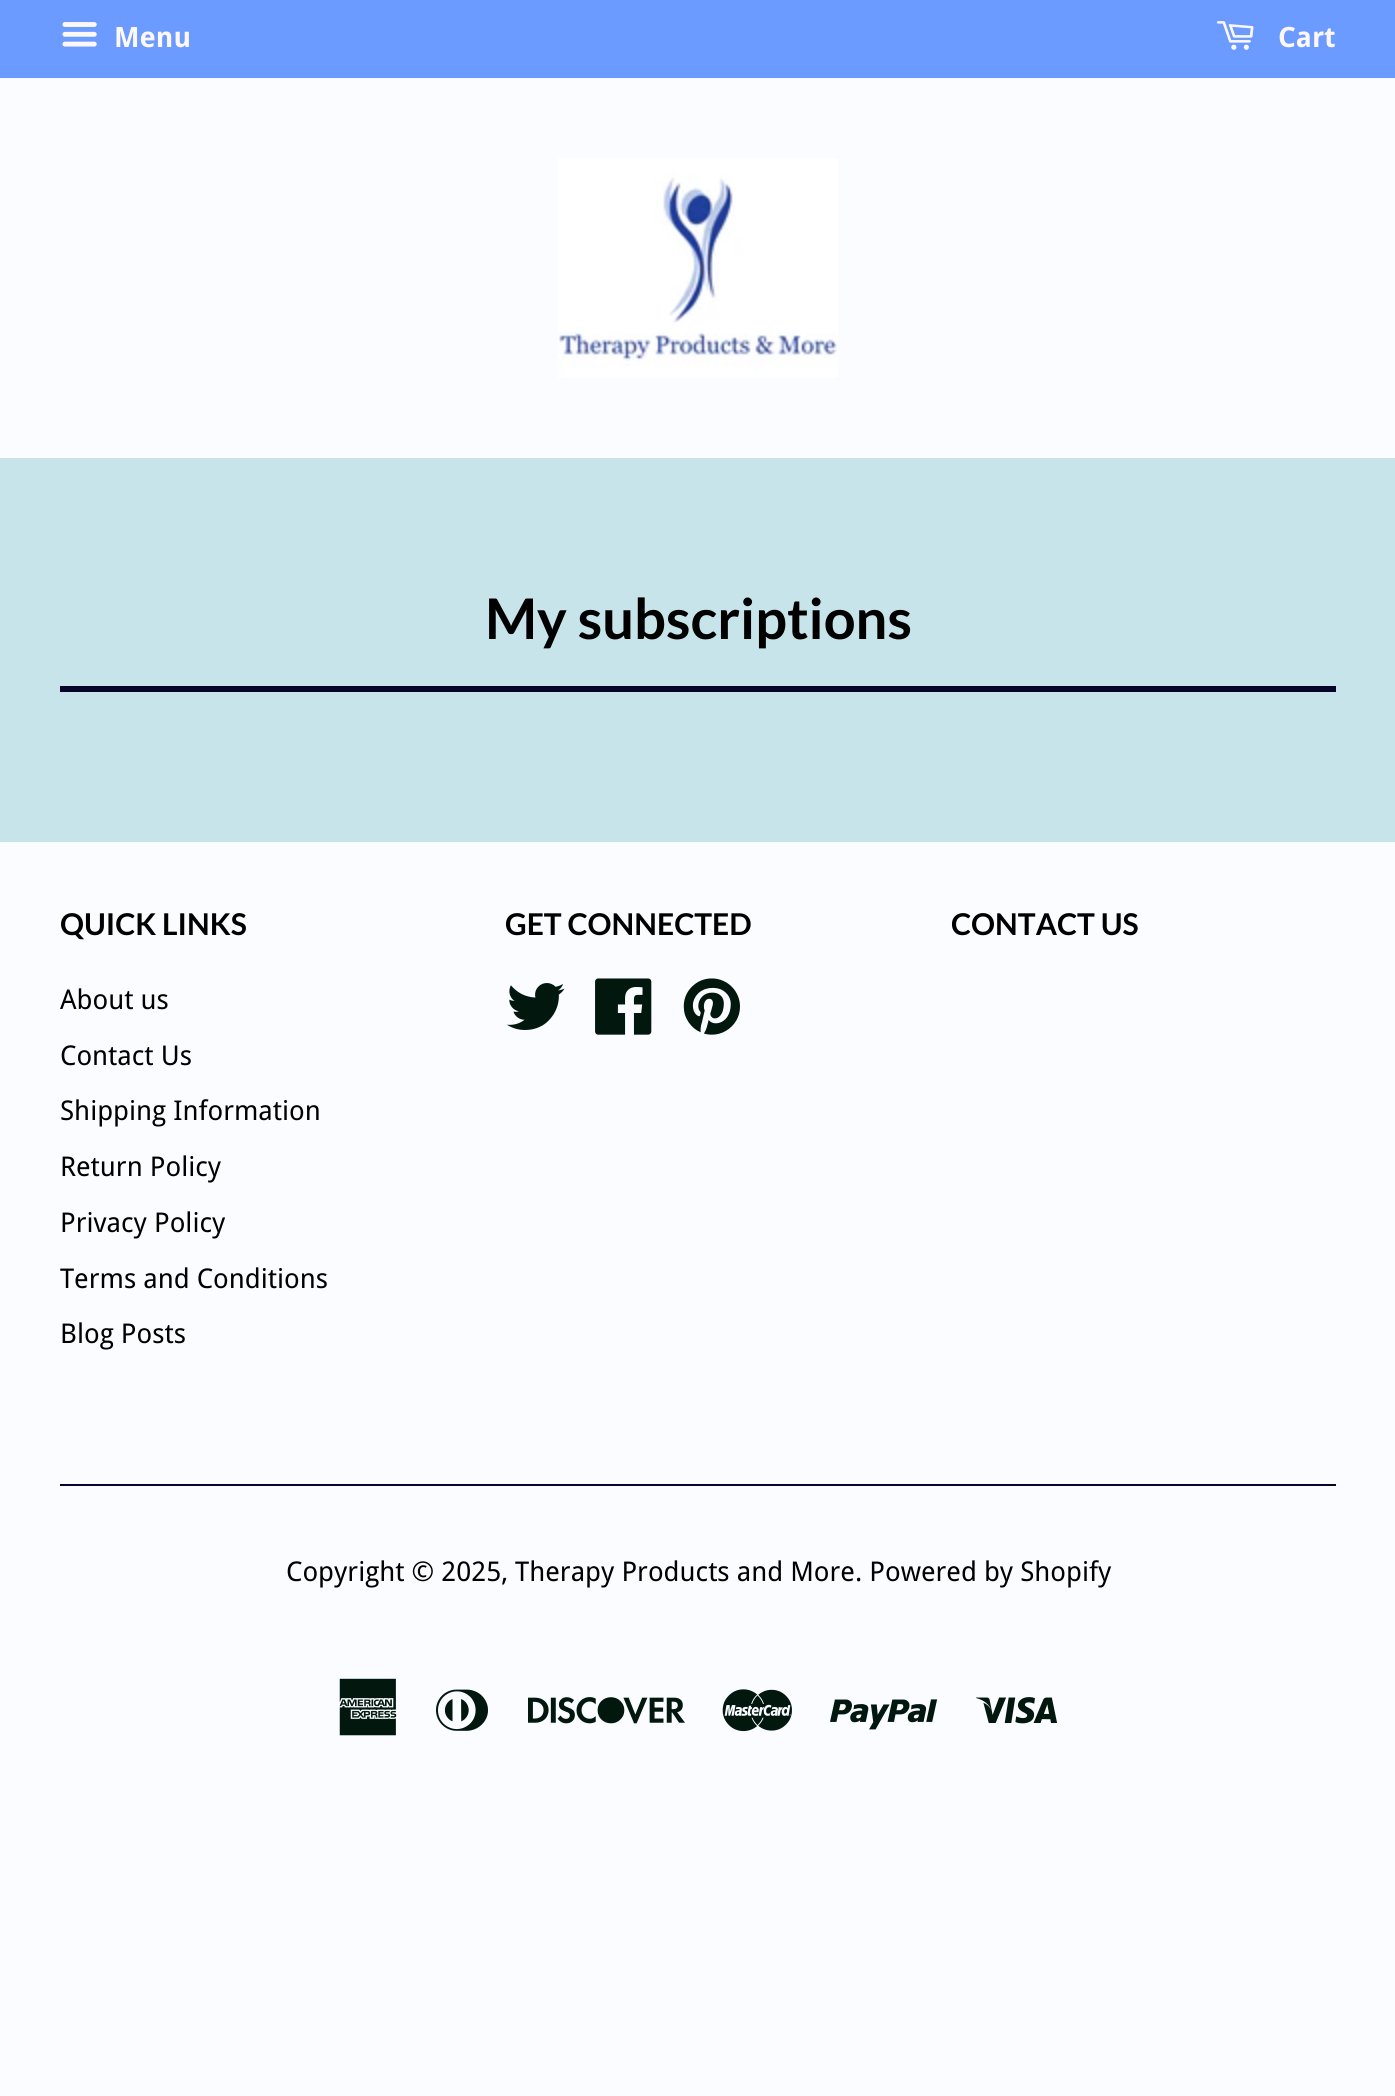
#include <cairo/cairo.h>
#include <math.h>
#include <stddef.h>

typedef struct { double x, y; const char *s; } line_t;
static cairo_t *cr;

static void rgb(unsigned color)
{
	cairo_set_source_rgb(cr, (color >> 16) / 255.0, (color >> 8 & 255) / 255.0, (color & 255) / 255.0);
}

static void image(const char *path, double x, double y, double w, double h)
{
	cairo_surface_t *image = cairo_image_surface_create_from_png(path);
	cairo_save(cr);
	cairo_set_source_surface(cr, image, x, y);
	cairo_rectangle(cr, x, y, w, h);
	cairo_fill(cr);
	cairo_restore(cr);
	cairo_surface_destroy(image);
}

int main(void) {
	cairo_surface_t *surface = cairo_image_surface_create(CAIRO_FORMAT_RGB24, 1395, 2096);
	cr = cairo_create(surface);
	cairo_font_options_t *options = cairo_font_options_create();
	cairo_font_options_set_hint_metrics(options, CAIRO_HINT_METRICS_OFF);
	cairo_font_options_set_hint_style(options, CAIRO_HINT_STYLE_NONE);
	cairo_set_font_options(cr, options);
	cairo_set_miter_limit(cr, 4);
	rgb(0xfafcff);
	cairo_paint(cr);
	rgb(0xc8e4eb);
	cairo_rectangle(cr, 0, 458, 1395, 384);
	cairo_fill(cr);
	rgb(0x6b9bff);
	cairo_rectangle(cr, 0, 0, 1395, 78);
	cairo_fill(cr);
	image("img/1.png", 62, 22, 35, 25);
	image("img/2.png", 1216, 21, 38, 29);
	image("img/3.png", 558, 158, 280, 220);
	rgb(0x07062a);
	cairo_rectangle(cr, 60, 686, 1276, 6);
	cairo_fill(cr);
	image("img/4.png", 507, 983, 58, 47);
	image("img/5.png", 595, 978, 57, 57);
	image("img/6.png", 683, 978, 57, 57);
	cairo_rectangle(cr, 60, 1484, 1276, 2);
	cairo_fill(cr);
	image("img/7.png", 339, 1678, 58, 58);
	image("img/8.png", 436, 1689, 52, 42);
	image("img/9.png", 528, 1697, 157, 27);
	image("img/10.png", 722, 1689, 70, 43);
	image("img/11.png", 830, 1699, 108, 31);
	image("img/12.png", 976, 1697, 82, 27);
	cairo_select_font_face(cr, "Droid Sans", CAIRO_FONT_SLANT_NORMAL, CAIRO_FONT_WEIGHT_BOLD);
	cairo_set_font_size(cr, 28);
	rgb(0xfef7f7);
	cairo_move_to(cr, 114, 47);
	cairo_show_text(cr, "Menu");
	cairo_move_to(cr, 1278, 47);
	cairo_show_text(cr, "Cart");
	cairo_select_font_face(cr, "Lato", CAIRO_FONT_SLANT_NORMAL, CAIRO_FONT_WEIGHT_BOLD);
	cairo_set_font_size(cr, 56);
	rgb(0x000000);
	cairo_move_to(cr, 485, 639);
	cairo_show_text(cr, "My subscriptions");
	cairo_set_font_size(cr, 30);
	cairo_move_to(cr, 60, 935);
	cairo_show_text(cr, "QUICK LINKS");
	cairo_select_font_face(cr, "Droid Sans", CAIRO_FONT_SLANT_NORMAL, CAIRO_FONT_WEIGHT_NORMAL);
	cairo_set_font_size(cr, 27.2);
	{
		static const line_t items[] = {
			{60, 1009, "About us"},
			{60, 1065, "Contact Us"},
			{60, 1120, "Shipping Information"},
			{60, 1176, "Return Policy"},
			{60, 1232, "Privacy Policy"},
			{60, 1288, "Terms and Conditions"},
			{60, 1343, "Blog Posts"},
		};
		for (size_t i = 0; i < sizeof items / sizeof *items; i++) {
			cairo_move_to(cr, items[i].x, items[i].y);
			cairo_show_text(cr, items[i].s);
		}
	}
	cairo_select_font_face(cr, "Lato", CAIRO_FONT_SLANT_NORMAL, CAIRO_FONT_WEIGHT_BOLD);
	cairo_set_font_size(cr, 30);
	cairo_move_to(cr, 505, 935);
	cairo_show_text(cr, "GET CONNECTED");
	cairo_move_to(cr, 951, 935);
	cairo_show_text(cr, "CONTACT US");
	cairo_select_font_face(cr, "Droid Sans", CAIRO_FONT_SLANT_NORMAL, CAIRO_FONT_WEIGHT_NORMAL);
	cairo_set_font_size(cr, 27.2);
	cairo_move_to(cr, 286, 1581);
	cairo_show_text(cr, "Copyright © 2025, Therapy Products and More. Powered by Shopify");
	cairo_surface_write_to_png(surface, "page.png");
	cairo_font_options_destroy(options);
	cairo_destroy(cr);
	cairo_surface_destroy(surface);
	return 0;
}
